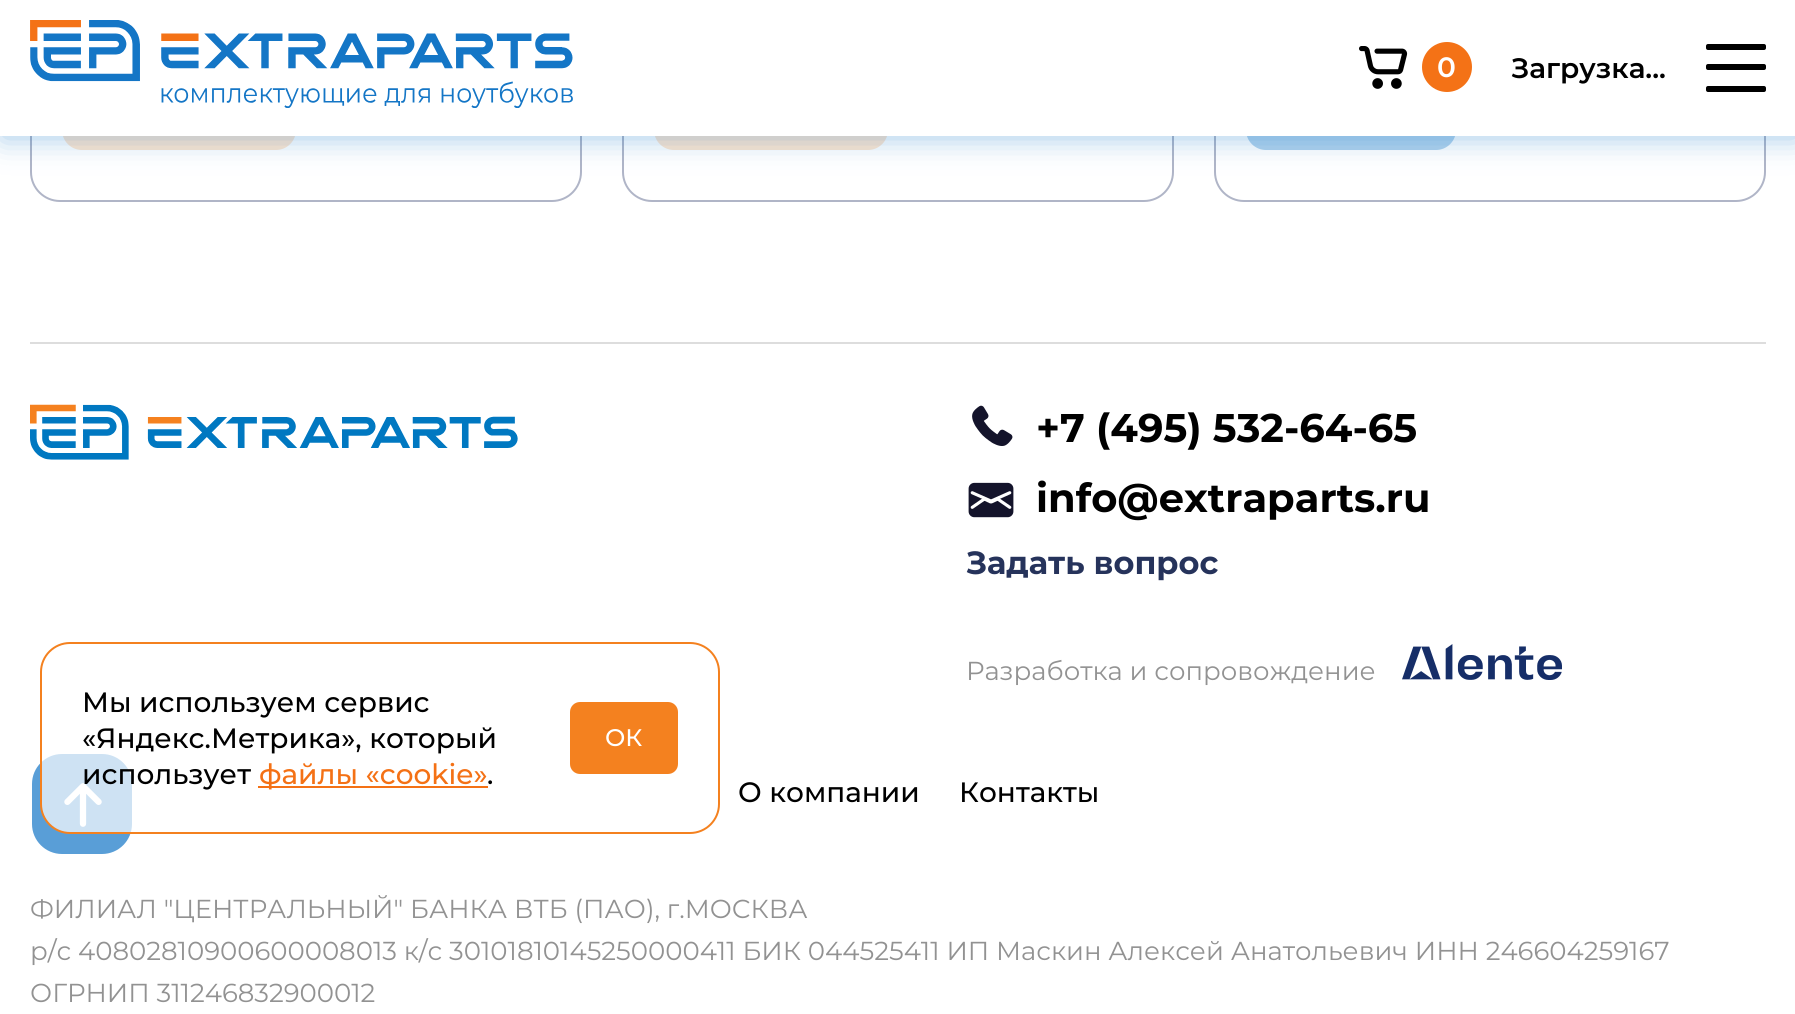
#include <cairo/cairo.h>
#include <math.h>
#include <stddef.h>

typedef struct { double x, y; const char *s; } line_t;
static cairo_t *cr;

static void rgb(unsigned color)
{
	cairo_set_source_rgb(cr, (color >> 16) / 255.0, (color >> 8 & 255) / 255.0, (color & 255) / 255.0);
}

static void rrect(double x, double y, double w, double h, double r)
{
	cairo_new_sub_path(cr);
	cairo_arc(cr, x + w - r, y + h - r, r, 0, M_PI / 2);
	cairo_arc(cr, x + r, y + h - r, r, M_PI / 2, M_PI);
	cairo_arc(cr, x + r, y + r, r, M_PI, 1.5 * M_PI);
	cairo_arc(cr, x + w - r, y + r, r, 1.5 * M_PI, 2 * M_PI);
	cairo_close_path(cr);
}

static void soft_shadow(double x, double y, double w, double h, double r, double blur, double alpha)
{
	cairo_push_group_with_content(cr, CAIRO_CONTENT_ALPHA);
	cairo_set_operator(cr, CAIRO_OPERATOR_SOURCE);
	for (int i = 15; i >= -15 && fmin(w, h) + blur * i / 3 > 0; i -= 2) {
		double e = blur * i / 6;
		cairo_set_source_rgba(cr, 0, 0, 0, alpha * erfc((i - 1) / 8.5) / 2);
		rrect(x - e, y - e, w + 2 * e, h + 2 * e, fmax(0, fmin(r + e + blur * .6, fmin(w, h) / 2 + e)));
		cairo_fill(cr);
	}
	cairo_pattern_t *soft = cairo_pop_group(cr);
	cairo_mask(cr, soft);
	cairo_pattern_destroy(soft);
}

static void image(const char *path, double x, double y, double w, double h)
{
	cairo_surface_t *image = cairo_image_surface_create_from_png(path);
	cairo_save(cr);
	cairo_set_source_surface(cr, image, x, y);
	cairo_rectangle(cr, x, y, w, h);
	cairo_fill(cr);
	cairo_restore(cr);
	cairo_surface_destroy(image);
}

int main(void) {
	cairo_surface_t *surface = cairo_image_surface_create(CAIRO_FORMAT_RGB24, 1795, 1014);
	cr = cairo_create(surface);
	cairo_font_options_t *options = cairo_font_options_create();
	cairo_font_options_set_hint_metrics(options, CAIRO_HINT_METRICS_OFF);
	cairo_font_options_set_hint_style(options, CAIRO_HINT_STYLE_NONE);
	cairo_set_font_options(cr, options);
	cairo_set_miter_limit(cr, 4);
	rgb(0xffffff);
	cairo_paint(cr);
	rrect(31, -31, 550, 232, 29);
	rgb(0xb0b5c7);
	cairo_stroke(cr);
	rgb(0xffe5ce);
	rrect(62, 70, 234, 80, 20);
	cairo_fill(cr);
	rrect(623, -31, 550, 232, 29);
	rgb(0xb0b5c7);
	cairo_stroke(cr);
	rgb(0xffe5ce);
	rrect(654, 70, 234, 80, 20);
	cairo_fill(cr);
	rrect(1215, -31, 550, 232, 29);
	rgb(0xb0b5c7);
	cairo_stroke(cr);
	rgb(0xb1d2ec);
	rrect(1246, 54, 210, 96, 20);
	cairo_fill(cr);
	rgb(0x1476c6);
	soft_shadow(2, 2, 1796, 136, 0, 15, 0.4);
	rgb(0xffffff);
	cairo_rectangle(cr, 0, 0, 1795, 136);
	cairo_fill(cr);
	image("img/1.png", 30, 20, 543, 88);
	image("img/2.png", 1359, 46, 49, 43);
	rgb(0xf47216);
	cairo_arc(cr, 1447, 67, 25, 0, 2 * M_PI);
	cairo_fill(cr);
	rgb(0x000000);
	rrect(1706, 44, 60, 6, 2);
	cairo_fill(cr);
	rrect(1706, 64, 60, 6, 2);
	cairo_fill(cr);
	rrect(1706, 86, 60, 6, 2);
	cairo_fill(cr);
	rgb(0xdddddd);
	cairo_rectangle(cr, 30, 342, 1736, 2);
	cairo_fill(cr);
	image("img/3.png", 30, 404, 488, 56);
	image("img/4.png", 972, 405, 41, 41);
	image("img/5.png", 968, 482, 46, 36);
	image("img/6.png", 1402, 644, 160, 36);
	cairo_set_source_rgba(cr, 0.078, 0.463, 0.776, 0.7);
	rrect(32, 754, 100, 100, 30);
	cairo_fill(cr);
	image("img/7.png", 64, 783, 38, 44);
	cairo_set_source_rgba(cr, 1, 1, 1, 0.7);
	rrect(41, 643, 678, 190, 29);
	cairo_fill_preserve(cr);
	rgb(0xf4811f);
	cairo_stroke(cr);
	rgb(0xf47115);
	cairo_rectangle(cr, 258, 786, 230, 2);
	cairo_fill(cr);
	rgb(0xf4811f);
	rrect(570, 702, 108, 72, 10);
	cairo_fill(cr);
	cairo_select_font_face(cr, "Montserrat SemiBold", CAIRO_FONT_SLANT_NORMAL, CAIRO_FONT_WEIGHT_NORMAL);
	cairo_set_font_size(cr, 28);
	rgb(0xffffff);
	cairo_move_to(cr, 1437, 77);
	cairo_show_text(cr, "0");
	rgb(0x000000);
	cairo_move_to(cr, 1511, 78);
	cairo_show_text(cr, "Загрузка...");
	cairo_select_font_face(cr, "Montserrat", CAIRO_FONT_SLANT_NORMAL, CAIRO_FONT_WEIGHT_BOLD);
	cairo_set_font_size(cr, 40);
	cairo_move_to(cr, 1036, 442);
	cairo_show_text(cr, "+7 (495) 532-64-65");
	cairo_move_to(cr, 1036, 512);
	cairo_show_text(cr, "info@extraparts.ru");
	cairo_set_font_size(cr, 32);
	rgb(0x26335b);
	cairo_move_to(cr, 966, 574);
	cairo_show_text(cr, "Задать вопрос");
	cairo_select_font_face(cr, "Montserrat", CAIRO_FONT_SLANT_NORMAL, CAIRO_FONT_WEIGHT_NORMAL);
	cairo_set_font_size(cr, 26);
	rgb(0x929292);
	cairo_move_to(cr, 966, 680);
	cairo_show_text(cr, "Разработка и сопровождение");
	cairo_select_font_face(cr, "Montserrat Medium", CAIRO_FONT_SLANT_NORMAL, CAIRO_FONT_WEIGHT_NORMAL);
	cairo_set_font_size(cr, 28);
	rgb(0x000000);
	cairo_move_to(cr, 738, 802);
	cairo_show_text(cr, "О компании");
	cairo_move_to(cr, 959, 802);
	cairo_show_text(cr, "Контакты");
	cairo_select_font_face(cr, "Montserrat", CAIRO_FONT_SLANT_NORMAL, CAIRO_FONT_WEIGHT_NORMAL);
	cairo_set_font_size(cr, 26);
	rgb(0x929292);
	{
		static const line_t items[] = {
			{30, 918, "ФИЛИАЛ \"ЦЕНТРАЛЬНЫЙ\" БАНКА ВТБ (ПАО), г.МОСКВА"},
			{30, 960, "р/с 40802810900600008013 к/с 30101810145250000411 БИК 044525411 ИП Маскин Алексей Анатольевич ИНН 246604259167"},
			{30, 1002, "ОГРНИП 311246832900012"},
		};
		for (size_t i = 0; i < sizeof items / sizeof *items; i++) {
			cairo_move_to(cr, items[i].x, items[i].y);
			cairo_show_text(cr, items[i].s);
		}
	}
	cairo_select_font_face(cr, "Montserrat Medium", CAIRO_FONT_SLANT_NORMAL, CAIRO_FONT_WEIGHT_NORMAL);
	cairo_set_font_size(cr, 28);
	rgb(0x000000);
	{
		static const line_t items[] = {
			{82, 712, "Мы используем сервис"},
			{82, 748, "«Яндекс.Метрика», который"},
			{82, 784, "использует"},
		};
		for (size_t i = 0; i < sizeof items / sizeof *items; i++) {
			cairo_move_to(cr, items[i].x, items[i].y);
			cairo_show_text(cr, items[i].s);
		}
	}
	rgb(0xf47115);
	cairo_move_to(cr, 259, 784);
	cairo_show_text(cr, "файлы «cookie»");
	rgb(0x000000);
	cairo_move_to(cr, 487, 784);
	cairo_show_text(cr, ".");
	cairo_set_font_size(cr, 24);
	rgb(0xffffff);
	cairo_move_to(cr, 605, 746);
	cairo_show_text(cr, "ОК");
	cairo_surface_write_to_png(surface, "page.png");
	cairo_font_options_destroy(options);
	cairo_destroy(cr);
	cairo_surface_destroy(surface);
	return 0;
}
